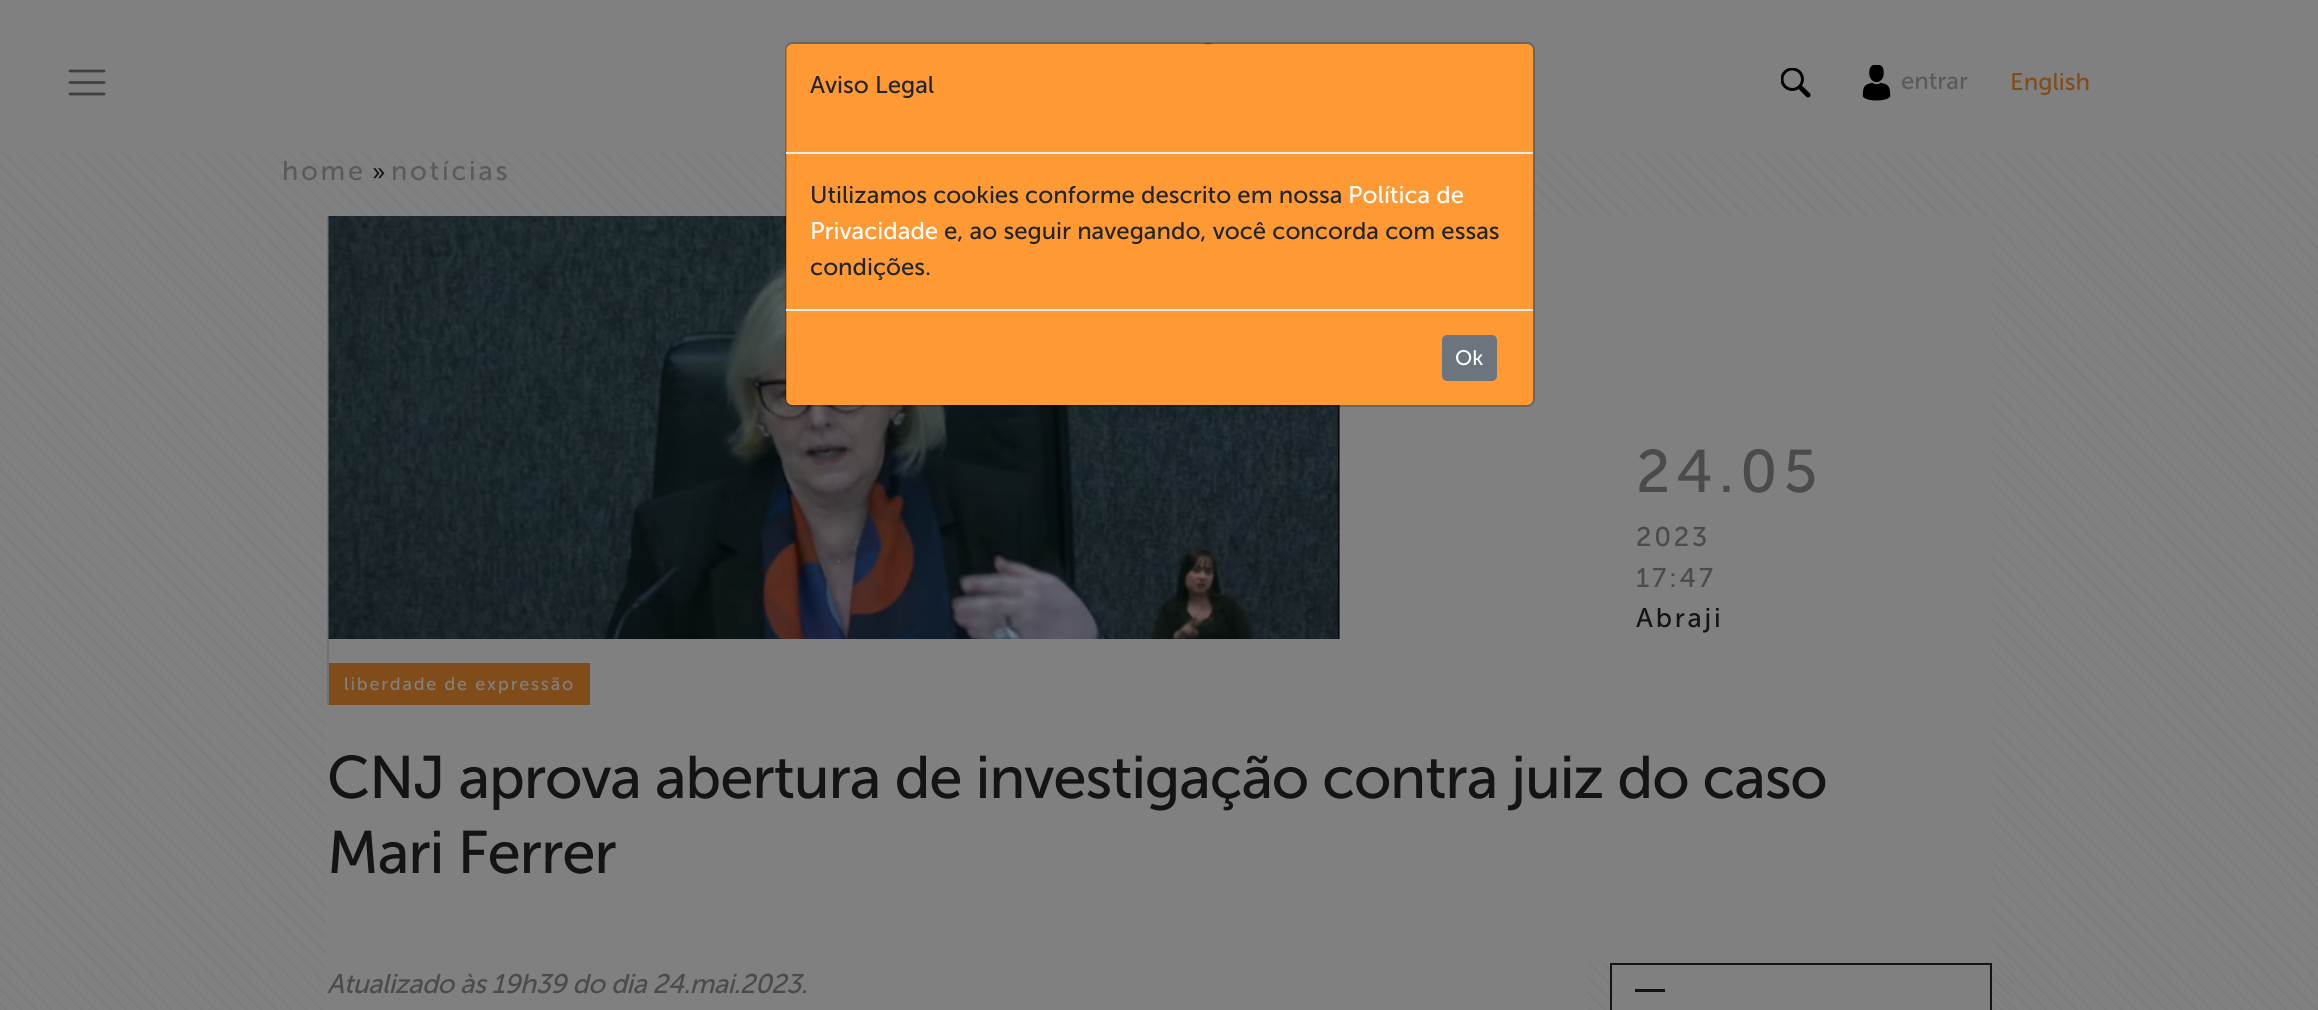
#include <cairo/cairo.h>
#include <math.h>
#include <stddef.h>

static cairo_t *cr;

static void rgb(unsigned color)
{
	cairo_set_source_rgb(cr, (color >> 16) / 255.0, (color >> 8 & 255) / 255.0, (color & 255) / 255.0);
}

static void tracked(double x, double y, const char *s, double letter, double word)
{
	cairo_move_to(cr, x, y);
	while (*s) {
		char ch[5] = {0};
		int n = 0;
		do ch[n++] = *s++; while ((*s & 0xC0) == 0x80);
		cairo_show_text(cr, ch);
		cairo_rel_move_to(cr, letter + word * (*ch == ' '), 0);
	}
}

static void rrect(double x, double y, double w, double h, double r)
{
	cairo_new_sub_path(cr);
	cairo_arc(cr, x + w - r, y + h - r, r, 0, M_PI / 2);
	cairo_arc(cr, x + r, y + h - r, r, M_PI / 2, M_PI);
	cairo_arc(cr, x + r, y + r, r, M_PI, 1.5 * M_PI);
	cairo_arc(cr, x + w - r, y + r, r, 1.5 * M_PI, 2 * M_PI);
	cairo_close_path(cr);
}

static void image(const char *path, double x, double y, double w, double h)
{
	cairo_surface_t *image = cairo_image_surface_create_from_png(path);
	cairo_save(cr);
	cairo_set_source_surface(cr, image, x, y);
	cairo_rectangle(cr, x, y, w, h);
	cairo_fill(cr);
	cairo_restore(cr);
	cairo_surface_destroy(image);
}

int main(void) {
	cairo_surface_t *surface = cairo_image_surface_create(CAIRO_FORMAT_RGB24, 2318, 1010);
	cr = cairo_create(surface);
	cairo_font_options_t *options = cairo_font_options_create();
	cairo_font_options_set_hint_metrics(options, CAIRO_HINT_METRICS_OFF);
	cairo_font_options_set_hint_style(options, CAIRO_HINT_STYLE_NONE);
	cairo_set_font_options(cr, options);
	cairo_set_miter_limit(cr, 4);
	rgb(0x808080);
	cairo_paint(cr);
	image("img/1.png", 1204, 43, 9, 1);
	cairo_new_path(cr);
	cairo_move_to(cr, 70, 71);
	cairo_line_to(cr, 104, 71);
	cairo_move_to(cr, 70, 82.5);
	cairo_line_to(cr, 104, 82.5);
	cairo_move_to(cr, 70, 94);
	cairo_line_to(cr, 104, 94);
	rgb(0x404040);
	cairo_set_line_width(cr, 2.8);
	cairo_set_line_cap(cr, CAIRO_LINE_CAP_ROUND);
	cairo_stroke(cr);
	image("img/2.png", 1781, 68, 30, 30);
	image("img/3.png", 1862, 65, 29, 36);
	image("img/4.png", 0, 151, 2318, 859);
	rgb(0x808080);
	cairo_rectangle(cr, 0, 152, 2318, 40);
	cairo_fill(cr);
	image("img/5.png", 0, 151, 2318, 41);
	cairo_rectangle(cr, 327, 216, 1665, 794);
	cairo_fill(cr);
	rgb(0x6f7173);
	cairo_rectangle(cr, 327, 216, 2, 489);
	cairo_fill(cr);
	image("img/6.png", 328, 216, 1012, 423);
	rgb(0x804d1a);
	cairo_rectangle(cr, 329, 663, 261, 42);
	cairo_fill(cr);
	image("img/7.png", 1587, 963, 428, 47);
	rgb(0x808080);
	cairo_rectangle(cr, 1611, 964, 380, 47);
	cairo_fill_preserve(cr);
	rgb(0x141414);
	cairo_set_line_width(cr, 2);
	cairo_set_line_cap(cr, CAIRO_LINE_CAP_BUTT);
	cairo_stroke(cr);
	rgb(0x111315);
	cairo_rectangle(cr, 1635, 989, 30, 3);
	cairo_fill(cr);
	rgb(0xff9933);
	rrect(786, 44, 747, 361, 6);
	cairo_fill(cr);
	rrect(786, 43, 748, 363, 7);
	cairo_set_source_rgba(cr, 0, 0, 0, 0.2);
	cairo_stroke(cr);
	rgb(0xe9ecef);
	cairo_rectangle(cr, 786, 152, 747, 2);
	cairo_fill(cr);
	cairo_rectangle(cr, 786, 309, 747, 2);
	cairo_fill(cr);
	rgb(0x6c757d);
	rrect(1443, 336, 53, 44, 4);
	cairo_fill_preserve(cr);
	cairo_stroke(cr);
	cairo_select_font_face(cr, "Museo Sans", CAIRO_FONT_SLANT_NORMAL, CAIRO_FONT_WEIGHT_NORMAL);
	cairo_set_font_size(cr, 24);
	rgb(0x5a5a5a);
	cairo_move_to(cr, 1901, 89);
	cairo_show_text(cr, "entrar");
	rgb(0x804d1a);
	cairo_move_to(cr, 2010, 90);
	cairo_show_text(cr, "English");
	cairo_set_font_size(cr, 27);
	rgb(0x5a5a5a);
	tracked(282, 180, "home", 2.75, 0);
	cairo_set_font_size(cr, 24);
	rgb(0x141414);
	cairo_move_to(cr, 372, 180);
	cairo_show_text(cr, "»");
	cairo_set_font_size(cr, 27);
	rgb(0x5a5a5a);
	tracked(391, 180, "notícias", 2.75, 0);
	cairo_set_font_size(cr, 60);
	rgb(0x4b4b4b);
	tracked(1636, 492, "24.05", 6, 0);
	cairo_set_font_size(cr, 27);
	tracked(1636, 546, "2023", 2.75, 0);
	tracked(1636, 587, "17:47", 2.75, 0);
	rgb(0x141414);
	tracked(1636, 627, "Abraji", 2.75, 0);
	cairo_set_font_size(cr, 18);
	rgb(0x808080);
	tracked(344, 690, "liberdade de expressão", 1.8, 0);
	cairo_set_font_size(cr, 60);
	rgb(0x141414);
	tracked(327, 798, "CNJ aprova abertura de investigação contra juiz do caso", -1.2, 0);
	tracked(327, 873, "Mari Ferrer", -1.2, 0);
	cairo_select_font_face(cr, "Museo Sans", CAIRO_FONT_SLANT_ITALIC, CAIRO_FONT_WEIGHT_NORMAL);
	cairo_set_font_size(cr, 27);
	rgb(0x4b4b4b);
	tracked(327, 993, "Atualizado às 19h39 do dia 24.mai.2023.", -0.55, 0);
	cairo_select_font_face(cr, "Museo Sans", CAIRO_FONT_SLANT_NORMAL, CAIRO_FONT_WEIGHT_NORMAL);
	cairo_set_font_size(cr, 24);
	rgb(0x212529);
	cairo_move_to(cr, 810, 93);
	cairo_show_text(cr, "Aviso Legal");
	cairo_move_to(cr, 810, 203);
	cairo_show_text(cr, "Utilizamos cookies conforme descrito em nossa");
	rgb(0xffffff);
	cairo_move_to(cr, 1348, 203);
	cairo_show_text(cr, "Política de");
	cairo_move_to(cr, 810, 239);
	cairo_show_text(cr, "Privacidade");
	rgb(0x212529);
	cairo_move_to(cr, 944, 239);
	cairo_show_text(cr, "e, ao seguir navegando, você concorda com essas");
	cairo_move_to(cr, 810, 275);
	cairo_show_text(cr, "condições.");
	cairo_set_font_size(cr, 21);
	rgb(0xffffff);
	cairo_move_to(cr, 1455, 365);
	cairo_show_text(cr, "Ok");
	cairo_surface_write_to_png(surface, "page.png");
	cairo_font_options_destroy(options);
	cairo_destroy(cr);
	cairo_surface_destroy(surface);
	return 0;
}
